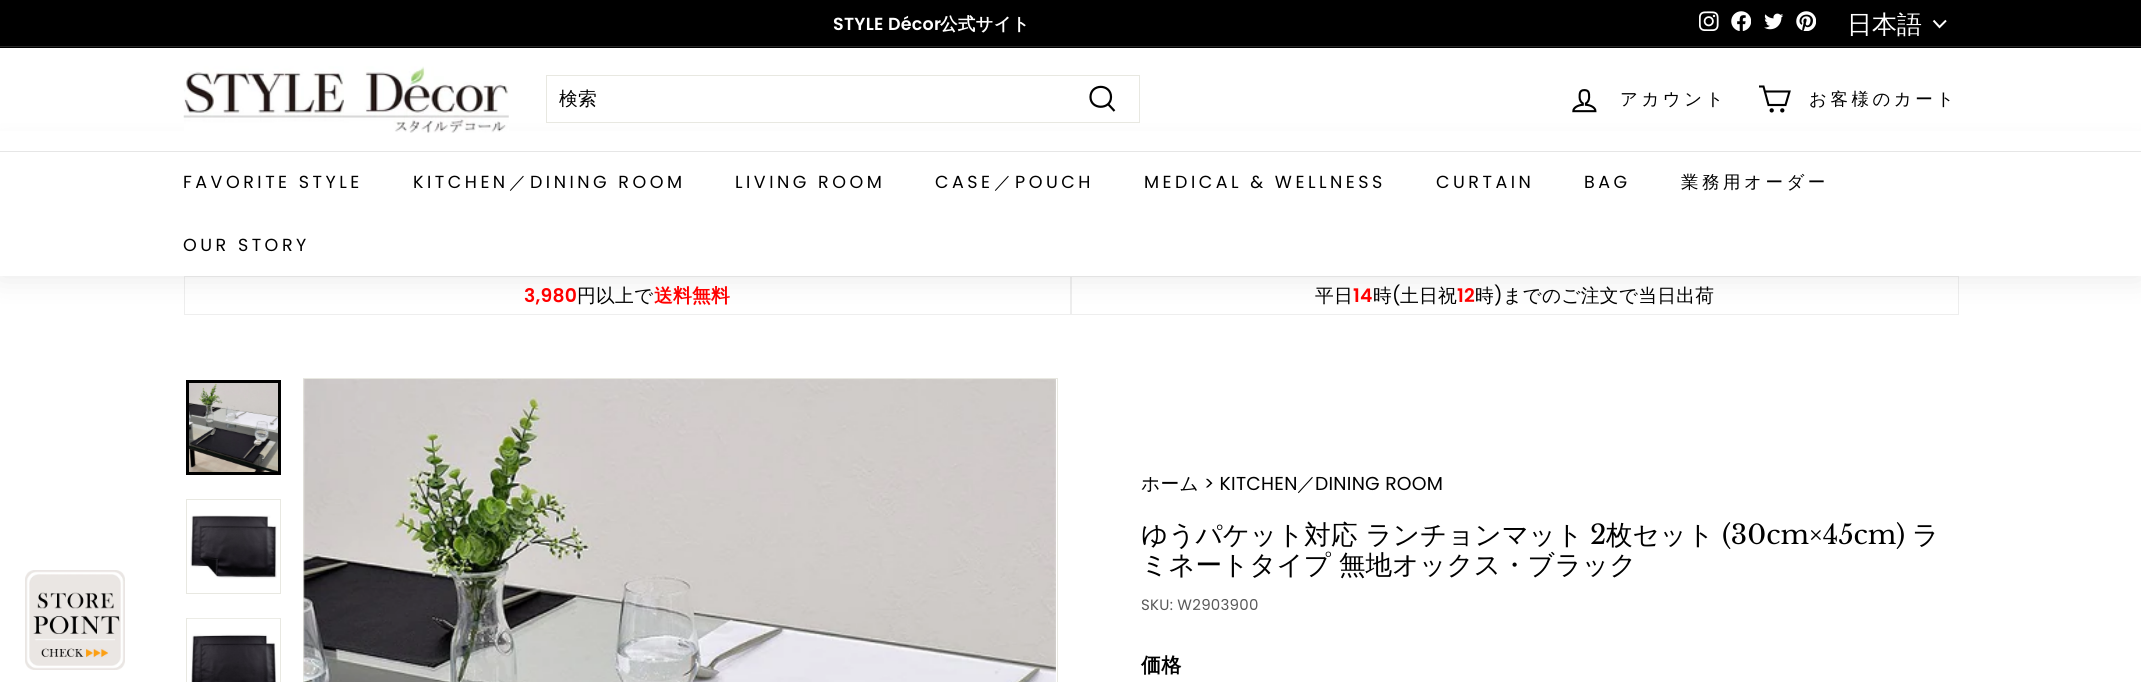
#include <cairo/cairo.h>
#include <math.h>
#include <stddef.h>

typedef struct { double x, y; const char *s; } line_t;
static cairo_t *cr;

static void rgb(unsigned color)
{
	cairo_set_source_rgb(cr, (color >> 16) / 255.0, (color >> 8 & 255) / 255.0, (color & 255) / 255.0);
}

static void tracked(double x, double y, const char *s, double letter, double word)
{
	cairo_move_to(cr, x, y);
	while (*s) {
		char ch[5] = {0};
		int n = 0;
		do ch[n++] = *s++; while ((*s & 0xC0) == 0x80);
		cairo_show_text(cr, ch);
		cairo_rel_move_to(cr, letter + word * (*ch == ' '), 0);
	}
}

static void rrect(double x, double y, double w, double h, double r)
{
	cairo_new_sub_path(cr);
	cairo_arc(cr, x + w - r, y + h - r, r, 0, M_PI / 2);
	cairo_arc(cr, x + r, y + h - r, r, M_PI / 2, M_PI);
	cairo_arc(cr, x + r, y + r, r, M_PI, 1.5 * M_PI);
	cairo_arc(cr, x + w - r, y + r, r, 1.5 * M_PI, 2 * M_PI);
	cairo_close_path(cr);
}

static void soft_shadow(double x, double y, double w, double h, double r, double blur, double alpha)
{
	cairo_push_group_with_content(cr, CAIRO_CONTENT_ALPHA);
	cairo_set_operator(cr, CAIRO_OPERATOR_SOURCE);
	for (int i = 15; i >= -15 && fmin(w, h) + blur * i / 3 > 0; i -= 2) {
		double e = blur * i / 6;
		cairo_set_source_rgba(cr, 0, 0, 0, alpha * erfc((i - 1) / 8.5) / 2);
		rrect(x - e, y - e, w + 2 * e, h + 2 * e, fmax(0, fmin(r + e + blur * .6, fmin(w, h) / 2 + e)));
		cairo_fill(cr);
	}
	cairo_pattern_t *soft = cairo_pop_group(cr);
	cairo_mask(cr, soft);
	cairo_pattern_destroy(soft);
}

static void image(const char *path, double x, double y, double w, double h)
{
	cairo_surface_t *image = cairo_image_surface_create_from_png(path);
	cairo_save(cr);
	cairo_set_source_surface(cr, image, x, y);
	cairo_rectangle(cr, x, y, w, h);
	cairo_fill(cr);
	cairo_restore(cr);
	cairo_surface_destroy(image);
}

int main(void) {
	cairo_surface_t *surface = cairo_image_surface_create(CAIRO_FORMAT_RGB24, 2141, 682);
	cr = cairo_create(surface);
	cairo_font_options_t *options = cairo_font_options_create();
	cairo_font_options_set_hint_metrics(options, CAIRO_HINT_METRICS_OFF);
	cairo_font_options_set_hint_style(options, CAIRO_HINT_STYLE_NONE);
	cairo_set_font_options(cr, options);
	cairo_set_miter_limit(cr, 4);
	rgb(0xffffff);
	cairo_paint(cr);
	image("img/1.png", 25, 570, 100, 100);
	rgb(0x000000);
	cairo_rectangle(cr, 0, 0, 2141, 48);
	cairo_fill(cr);
	image("img/2.png", 1699, 11, 20, 20);
	image("img/3.png", 1731, 11, 20, 20);
	image("img/4.png", 1764, 13, 20, 17);
	image("img/5.png", 1796, 11, 20, 20);
	cairo_new_path(cr);
	cairo_move_to(cr, 1933.5, 20.5);
	cairo_line_to(cr, 1939.5, 27);
	cairo_line_to(cr, 1946, 20.5);
	rgb(0xffffff);
	cairo_stroke(cr);
	rgb(0x262626);
	cairo_rectangle(cr, 0, 46, 2141, 1);
	cairo_fill(cr);
	cairo_rectangle(cr, 184.5, 276.5, 886, 38);
	rgb(0xeeeeee);
	cairo_set_line_width(cr, 1);
	cairo_stroke(cr);
	cairo_rectangle(cr, 1071.5, 276.5, 887, 38);
	cairo_stroke(cr);
	rgb(0x000000);
	soft_shadow(0, 151, 2141, 125, 0, 15.5, 0.1);
	rgb(0xffffff);
	cairo_rectangle(cr, 0, 131, 2141, 20);
	cairo_fill(cr);
	image("img/6.png", 183, 66, 326, 67);
	cairo_rectangle(cr, 546.5, 75.5, 593, 47);
	rgb(0xe8e8e1);
	cairo_stroke(cr);
	cairo_new_path(cr);
	cairo_move_to(cr, 1111, 97);
	cairo_curve_to(cr, 1111, 110, 1090.5, 110, 1090.5, 97);
	cairo_curve_to(cr, 1090.5, 83.5, 1111, 83.5, 1111, 97);
	cairo_close_path(cr);
	cairo_move_to(cr, 1114.5, 111);
	cairo_line_to(cr, 1108, 104);
	rgb(0x000000);
	cairo_set_line_width(cr, 2.2);
	cairo_stroke(cr);
	image("img/7.png", 1572, 89, 25, 24);
	cairo_new_path(cr);
	cairo_move_to(cr, 1765, 91.5);
	cairo_line_to(cr, 1789.5, 91.5);
	cairo_line_to(cr, 1785.5, 105);
	cairo_line_to(cr, 1768.5, 105);
	cairo_line_to(cr, 1763.5, 86.5);
	cairo_line_to(cr, 1759, 86.5);
	cairo_set_line_width(cr, 2.1);
	cairo_stroke(cr);
	cairo_arc(cr, 1771.7, 110.4, 1.1, 0, 2 * M_PI);
	cairo_stroke(cr);
	cairo_arc(cr, 1782.3, 110.4, 1.1, 0, 2 * M_PI);
	cairo_stroke(cr);
	rgb(0xffffff);
	cairo_rectangle(cr, 0, 152, 2141, 124);
	cairo_fill(cr);
	rgb(0xe6e6e6);
	cairo_rectangle(cr, 0, 151, 2141, 1);
	cairo_fill(cr);
	image("img/8.png", 189, 383, 89, 89);
	cairo_rectangle(cr, 187.5, 381.5, 92, 92);
	rgb(0x000000);
	cairo_set_line_width(cr, 3);
	cairo_stroke(cr);
	cairo_rectangle(cr, 186.5, 499.5, 94, 94);
	rgb(0xe8e8e1);
	cairo_set_line_width(cr, 1);
	cairo_stroke(cr);
	image("img/9.png", 190, 515, 87, 64);
	cairo_rectangle(cr, 186.5, 618.5, 94, 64);
	cairo_stroke(cr);
	image("img/10.png", 188, 618, 92, 64);
	cairo_rectangle(cr, 303.5, 378.5, 754, 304);
	cairo_stroke(cr);
	image("img/11.png", 303, 379, 753, 303);
	cairo_select_font_face(cr, "Poppins SemiBold", CAIRO_FONT_SLANT_NORMAL, CAIRO_FONT_WEIGHT_NORMAL);
	cairo_set_font_size(cr, 17.5);
	rgb(0xffffff);
	tracked(833, 30, "STYLE Décor", 0.25, 0);
	cairo_select_font_face(cr, "WenQuanYi Zen Hei", CAIRO_FONT_SLANT_NORMAL, CAIRO_FONT_WEIGHT_BOLD);
	tracked(940, 30, "公式サイト", 0.25, 0);
	cairo_select_font_face(cr, "WenQuanYi Zen Hei Medium", CAIRO_FONT_SLANT_NORMAL, CAIRO_FONT_WEIGHT_NORMAL);
	cairo_set_font_size(cr, 25);
	cairo_move_to(cr, 1847, 33);
	cairo_show_text(cr, "日本語");
	cairo_set_font_size(cr, 18.75);
	rgb(0x000000);
	tracked(559, 105, "検索", 0.25, 0);
	cairo_set_font_size(cr, 17.5);
	tracked(1620, 105, "アカウント", 3.5, 0);
	tracked(1809, 105, "お客様のカート", 3.5, 0);
	cairo_select_font_face(cr, "Poppins", CAIRO_FONT_SLANT_NORMAL, CAIRO_FONT_WEIGHT_NORMAL);
	tracked(183, 188, "FAVORITE STYLE", 3.5, 0);
	tracked(413, 188, "KITCHEN", 3.5, 0);
	cairo_select_font_face(cr, "WenQuanYi Zen Hei Medium", CAIRO_FONT_SLANT_NORMAL, CAIRO_FONT_WEIGHT_NORMAL);
	tracked(509, 188, "／", 3.5, 0);
	cairo_select_font_face(cr, "Poppins", CAIRO_FONT_SLANT_NORMAL, CAIRO_FONT_WEIGHT_NORMAL);
	{
		static const line_t items[] = {
			{530, 188, "DINING ROOM"},
			{735, 188, "LIVING ROOM"},
			{935, 188, "CASE"},
		};
		for (size_t i = 0; i < sizeof items / sizeof *items; i++) {
			tracked(items[i].x, items[i].y, items[i].s, 3.5, 0);
		}
	}
	cairo_select_font_face(cr, "WenQuanYi Zen Hei Medium", CAIRO_FONT_SLANT_NORMAL, CAIRO_FONT_WEIGHT_NORMAL);
	tracked(994, 188, "／", 3.5, 0);
	cairo_select_font_face(cr, "Poppins", CAIRO_FONT_SLANT_NORMAL, CAIRO_FONT_WEIGHT_NORMAL);
	{
		static const line_t items[] = {
			{1015, 188, "POUCH"},
			{1144, 188, "MEDICAL & WELLNESS"},
			{1436, 188, "CURTAIN"},
			{1584, 188, "BAG"},
		};
		for (size_t i = 0; i < sizeof items / sizeof *items; i++) {
			tracked(items[i].x, items[i].y, items[i].s, 3.5, 0);
		}
	}
	cairo_select_font_face(cr, "WenQuanYi Zen Hei Medium", CAIRO_FONT_SLANT_NORMAL, CAIRO_FONT_WEIGHT_NORMAL);
	tracked(1681, 188, "業務用オーダー", 3.5, 0);
	cairo_select_font_face(cr, "Poppins", CAIRO_FONT_SLANT_NORMAL, CAIRO_FONT_WEIGHT_NORMAL);
	tracked(183, 251, "OUR STORY", 3.5, 0);
	cairo_select_font_face(cr, "Poppins SemiBold", CAIRO_FONT_SLANT_NORMAL, CAIRO_FONT_WEIGHT_NORMAL);
	cairo_set_font_size(cr, 18.75);
	rgb(0xff0000);
	tracked(524, 302, "3,980", 0.25, 0);
	cairo_select_font_face(cr, "WenQuanYi Zen Hei Medium", CAIRO_FONT_SLANT_NORMAL, CAIRO_FONT_WEIGHT_NORMAL);
	rgb(0x000000);
	tracked(577, 302, "円以上で", 0.25, 0);
	cairo_select_font_face(cr, "WenQuanYi Zen Hei", CAIRO_FONT_SLANT_NORMAL, CAIRO_FONT_WEIGHT_BOLD);
	rgb(0xff0000);
	tracked(654, 302, "送料無料", 0.25, 0);
	cairo_select_font_face(cr, "WenQuanYi Zen Hei Medium", CAIRO_FONT_SLANT_NORMAL, CAIRO_FONT_WEIGHT_NORMAL);
	rgb(0x000000);
	tracked(1315, 302, "平日", 0.25, 0);
	cairo_select_font_face(cr, "Poppins SemiBold", CAIRO_FONT_SLANT_NORMAL, CAIRO_FONT_WEIGHT_NORMAL);
	rgb(0xff0000);
	tracked(1353, 302, "14", 0.25, 0);
	cairo_select_font_face(cr, "WenQuanYi Zen Hei Medium", CAIRO_FONT_SLANT_NORMAL, CAIRO_FONT_WEIGHT_NORMAL);
	rgb(0x000000);
	tracked(1373, 302, "時", 0.25, 0);
	cairo_select_font_face(cr, "Poppins", CAIRO_FONT_SLANT_NORMAL, CAIRO_FONT_WEIGHT_NORMAL);
	tracked(1392, 302, "(", 0.25, 0);
	cairo_select_font_face(cr, "WenQuanYi Zen Hei Medium", CAIRO_FONT_SLANT_NORMAL, CAIRO_FONT_WEIGHT_NORMAL);
	tracked(1400, 302, "土日祝", 0.25, 0);
	cairo_select_font_face(cr, "Poppins SemiBold", CAIRO_FONT_SLANT_NORMAL, CAIRO_FONT_WEIGHT_NORMAL);
	rgb(0xff0000);
	tracked(1457, 302, "12", 0.25, 0);
	cairo_select_font_face(cr, "WenQuanYi Zen Hei Medium", CAIRO_FONT_SLANT_NORMAL, CAIRO_FONT_WEIGHT_NORMAL);
	rgb(0x000000);
	tracked(1475, 302, "時", 0.25, 0);
	cairo_select_font_face(cr, "Poppins", CAIRO_FONT_SLANT_NORMAL, CAIRO_FONT_WEIGHT_NORMAL);
	tracked(1494, 302, ")", 0.25, 0);
	cairo_select_font_face(cr, "WenQuanYi Zen Hei Medium", CAIRO_FONT_SLANT_NORMAL, CAIRO_FONT_WEIGHT_NORMAL);
	tracked(1503, 302, "までのご注文で当日出荷", 0.25, 0);
	tracked(1141, 490, "ホーム", 0.25, 0);
	cairo_select_font_face(cr, "Poppins", CAIRO_FONT_SLANT_NORMAL, CAIRO_FONT_WEIGHT_NORMAL);
	tracked(1204, 490, "> KITCHEN", 0.25, 0);
	cairo_select_font_face(cr, "WenQuanYi Zen Hei Medium", CAIRO_FONT_SLANT_NORMAL, CAIRO_FONT_WEIGHT_NORMAL);
	tracked(1297, 490, "／", 0.25, 0);
	cairo_select_font_face(cr, "Poppins", CAIRO_FONT_SLANT_NORMAL, CAIRO_FONT_WEIGHT_NORMAL);
	tracked(1315, 490, "DINING ROOM", 0.25, 0);
	cairo_select_font_face(cr, "WenQuanYi Zen Hei Medium", CAIRO_FONT_SLANT_NORMAL, CAIRO_FONT_WEIGHT_NORMAL);
	cairo_set_font_size(cr, 26.6);
	cairo_move_to(cr, 1141, 544);
	cairo_show_text(cr, "ゆうパケット対応 ランチョンマット");
	cairo_select_font_face(cr, "Libre Baskerville", CAIRO_FONT_SLANT_NORMAL, CAIRO_FONT_WEIGHT_NORMAL);
	cairo_move_to(cr, 1590, 544);
	cairo_show_text(cr, "2");
	cairo_select_font_face(cr, "WenQuanYi Zen Hei Medium", CAIRO_FONT_SLANT_NORMAL, CAIRO_FONT_WEIGHT_NORMAL);
	cairo_move_to(cr, 1606, 544);
	cairo_show_text(cr, "枚セット");
	cairo_select_font_face(cr, "Libre Baskerville", CAIRO_FONT_SLANT_NORMAL, CAIRO_FONT_WEIGHT_NORMAL);
	cairo_move_to(cr, 1722, 544);
	cairo_show_text(cr, "(30cm×45cm)");
	cairo_select_font_face(cr, "WenQuanYi Zen Hei Medium", CAIRO_FONT_SLANT_NORMAL, CAIRO_FONT_WEIGHT_NORMAL);
	cairo_move_to(cr, 1912, 544);
	cairo_show_text(cr, "ラ");
	cairo_move_to(cr, 1141, 574);
	cairo_show_text(cr, "ミネートタイプ 無地オックス・ブラック");
	cairo_select_font_face(cr, "Poppins", CAIRO_FONT_SLANT_NORMAL, CAIRO_FONT_WEIGHT_NORMAL);
	cairo_set_font_size(cr, 15);
	rgb(0x595959);
	tracked(1141, 610, "SKU: W2903900", 0.25, 0);
	cairo_select_font_face(cr, "WenQuanYi Zen Hei", CAIRO_FONT_SLANT_NORMAL, CAIRO_FONT_WEIGHT_BOLD);
	cairo_set_font_size(cr, 20);
	rgb(0x000000);
	tracked(1141, 672, "価格", 0.25, 0);
	cairo_surface_write_to_png(surface, "page.png");
	cairo_font_options_destroy(options);
	cairo_destroy(cr);
	cairo_surface_destroy(surface);
	return 0;
}
